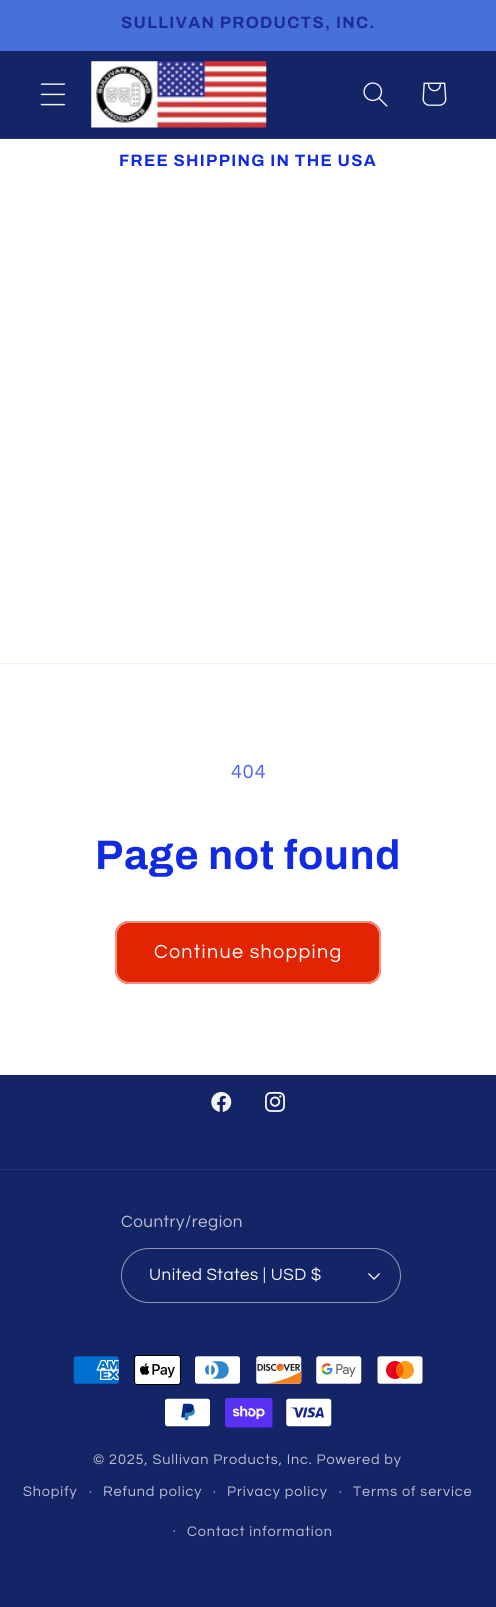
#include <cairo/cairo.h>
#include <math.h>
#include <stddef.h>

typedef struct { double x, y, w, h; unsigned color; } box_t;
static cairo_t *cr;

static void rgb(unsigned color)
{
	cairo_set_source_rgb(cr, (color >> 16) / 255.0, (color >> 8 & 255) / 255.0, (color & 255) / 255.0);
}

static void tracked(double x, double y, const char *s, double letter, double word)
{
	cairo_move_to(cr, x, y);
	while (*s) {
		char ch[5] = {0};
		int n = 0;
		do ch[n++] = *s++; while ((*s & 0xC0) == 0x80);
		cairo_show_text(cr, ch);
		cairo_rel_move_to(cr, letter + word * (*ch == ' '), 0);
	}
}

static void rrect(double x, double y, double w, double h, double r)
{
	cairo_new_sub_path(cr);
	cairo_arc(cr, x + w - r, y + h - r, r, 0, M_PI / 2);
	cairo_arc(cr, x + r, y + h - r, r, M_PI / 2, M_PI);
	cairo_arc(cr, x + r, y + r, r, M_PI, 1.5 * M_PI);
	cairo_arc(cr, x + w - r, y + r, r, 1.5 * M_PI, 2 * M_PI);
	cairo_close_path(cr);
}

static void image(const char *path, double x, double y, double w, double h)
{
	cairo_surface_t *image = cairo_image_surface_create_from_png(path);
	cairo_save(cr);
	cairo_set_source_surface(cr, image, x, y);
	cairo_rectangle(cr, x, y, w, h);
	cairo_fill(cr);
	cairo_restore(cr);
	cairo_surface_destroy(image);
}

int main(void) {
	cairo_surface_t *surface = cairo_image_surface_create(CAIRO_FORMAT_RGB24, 496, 1607);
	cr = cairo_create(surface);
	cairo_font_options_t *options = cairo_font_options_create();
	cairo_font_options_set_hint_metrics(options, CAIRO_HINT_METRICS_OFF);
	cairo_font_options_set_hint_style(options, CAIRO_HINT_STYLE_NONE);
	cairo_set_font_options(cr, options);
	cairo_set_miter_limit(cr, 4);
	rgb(0xffffff);
	cairo_paint(cr);
	{
		static const box_t items[] = {
			{0, 0, 496, 50, 0x4770db},
			{0, 50, 496, 1, 0x446bd5},
			{0, 51, 496, 87, 0x142567},
			{0, 138, 496, 1, 0x263672},
		};
		for (size_t i = 0; i < sizeof items / sizeof *items; i++) {
			rgb(items[i].color);
			cairo_rectangle(cr, items[i].x, items[i].y, items[i].w, items[i].h);
			cairo_fill(cr);
		}
	}
	image("img/1.png", 40, 83, 26, 23);
	image("img/2.png", 91, 61, 176, 67);
	image("img/3.png", 363, 82, 25, 25);
	image("img/4.png", 422, 82, 25, 24);
	rgb(0xeceefd);
	cairo_rectangle(cr, 0, 663, 496, 1);
	cairo_fill(cr);
	rgb(0xe32402);
	rrect(115, 921, 266, 63, 14);
	cairo_fill(cr);
	rrect(115.5, 921.5, 265, 62, 13.5);
	cairo_set_line_width(cr, 1);
	cairo_stroke(cr);
	rrect(116, 922, 264, 61, 13);
	cairo_set_source_rgba(cr, 1, 1, 1, 0.5);
	cairo_set_line_width(cr, 2);
	cairo_stroke(cr);
	rgb(0x142567);
	cairo_rectangle(cr, 0, 1075, 496, 532);
	cairo_fill(cr);
	image("img/5.png", 211, 1091, 21, 21);
	image("img/6.png", 265, 1091, 20, 21);
	rgb(0x263672);
	cairo_rectangle(cr, 0, 1169, 496, 1);
	cairo_fill(cr);
	image("img/7.png", 368, 1273, 12, 7);
	rrect(121.5, 1248.5, 279, 54, 27);
	rgb(0x9097b5);
	cairo_set_line_width(cr, 1);
	cairo_stroke(cr);
	image("img/8.png", 73, 1355, 47, 30);
	image("img/9.png", 134, 1355, 47, 30);
	image("img/10.png", 194, 1355, 47, 30);
	image("img/11.png", 255, 1355, 47, 30);
	image("img/12.png", 315, 1355, 47, 30);
	image("img/13.png", 376, 1355, 48, 30);
	image("img/14.png", 164, 1398, 47, 30);
	image("img/15.png", 225, 1398, 48, 30);
	image("img/16.png", 285, 1398, 47, 30);
	cairo_select_font_face(cr, "Archivo", CAIRO_FONT_SLANT_NORMAL, CAIRO_FONT_WEIGHT_BOLD);
	cairo_set_font_size(cr, 16.5);
	rgb(0x1d2c95);
	tracked(121, 28, "SULLIVAN PRODUCTS, INC.", 1.3, 0);
	rgb(0x102be1);
	tracked(119, 166, "FREE SHIPPING IN THE USA", 1.3, 0);
	cairo_select_font_face(cr, "Questrial", CAIRO_FONT_SLANT_NORMAL, CAIRO_FONT_WEIGHT_NORMAL);
	cairo_set_font_size(cr, 19.75);
	rgb(0x4c60e9);
	tracked(231, 778, "404", 1, 0);
	cairo_select_font_face(cr, "Archivo", CAIRO_FONT_SLANT_NORMAL, CAIRO_FONT_WEIGHT_BOLD);
	cairo_set_font_size(cr, 41.25);
	rgb(0x102be1);
	tracked(95, 869, "Page not found", 0.8, 0);
	cairo_select_font_face(cr, "Questrial", CAIRO_FONT_SLANT_NORMAL, CAIRO_FONT_WEIGHT_NORMAL);
	cairo_set_font_size(cr, 19.75);
	rgb(0xffffff);
	tracked(154, 958, "Continue shopping", 1.3, 0);
	cairo_set_font_size(cr, 17);
	rgb(0xbdc1d2);
	tracked(121, 1227, "Country/region", 0.5, 0);
	rgb(0xf5f5f5);
	tracked(149, 1280, "United States | USD $", 0.5, 0);
	cairo_set_font_size(cr, 14.4);
	rgb(0xbdc1d2);
	tracked(93, 1464, "© 2025, Sullivan Products, Inc. Powered by", 0.9, 0);
	tracked(23, 1496, "Shopify", 0.9, 0);
	cairo_set_font_size(cr, 13);
	tracked(89, 1496, "·", 0.9, 0);
	cairo_set_font_size(cr, 14.4);
	tracked(103, 1496, "Refund policy", 0.9, 0);
	cairo_set_font_size(cr, 13);
	tracked(213, 1496, "·", 0.9, 0);
	cairo_set_font_size(cr, 14.4);
	tracked(227, 1496, "Privacy policy", 0.9, 0);
	cairo_set_font_size(cr, 13);
	tracked(339, 1496, "·", 0.9, 0);
	cairo_set_font_size(cr, 14.4);
	tracked(353, 1496, "Terms of service", 0.9, 0);
	cairo_set_font_size(cr, 13);
	tracked(173, 1535, "·", 0.9, 0);
	cairo_set_font_size(cr, 14.4);
	tracked(187, 1536, "Contact information", 0.9, 0);
	cairo_surface_write_to_png(surface, "page.png");
	cairo_font_options_destroy(options);
	cairo_destroy(cr);
	cairo_surface_destroy(surface);
	return 0;
}
